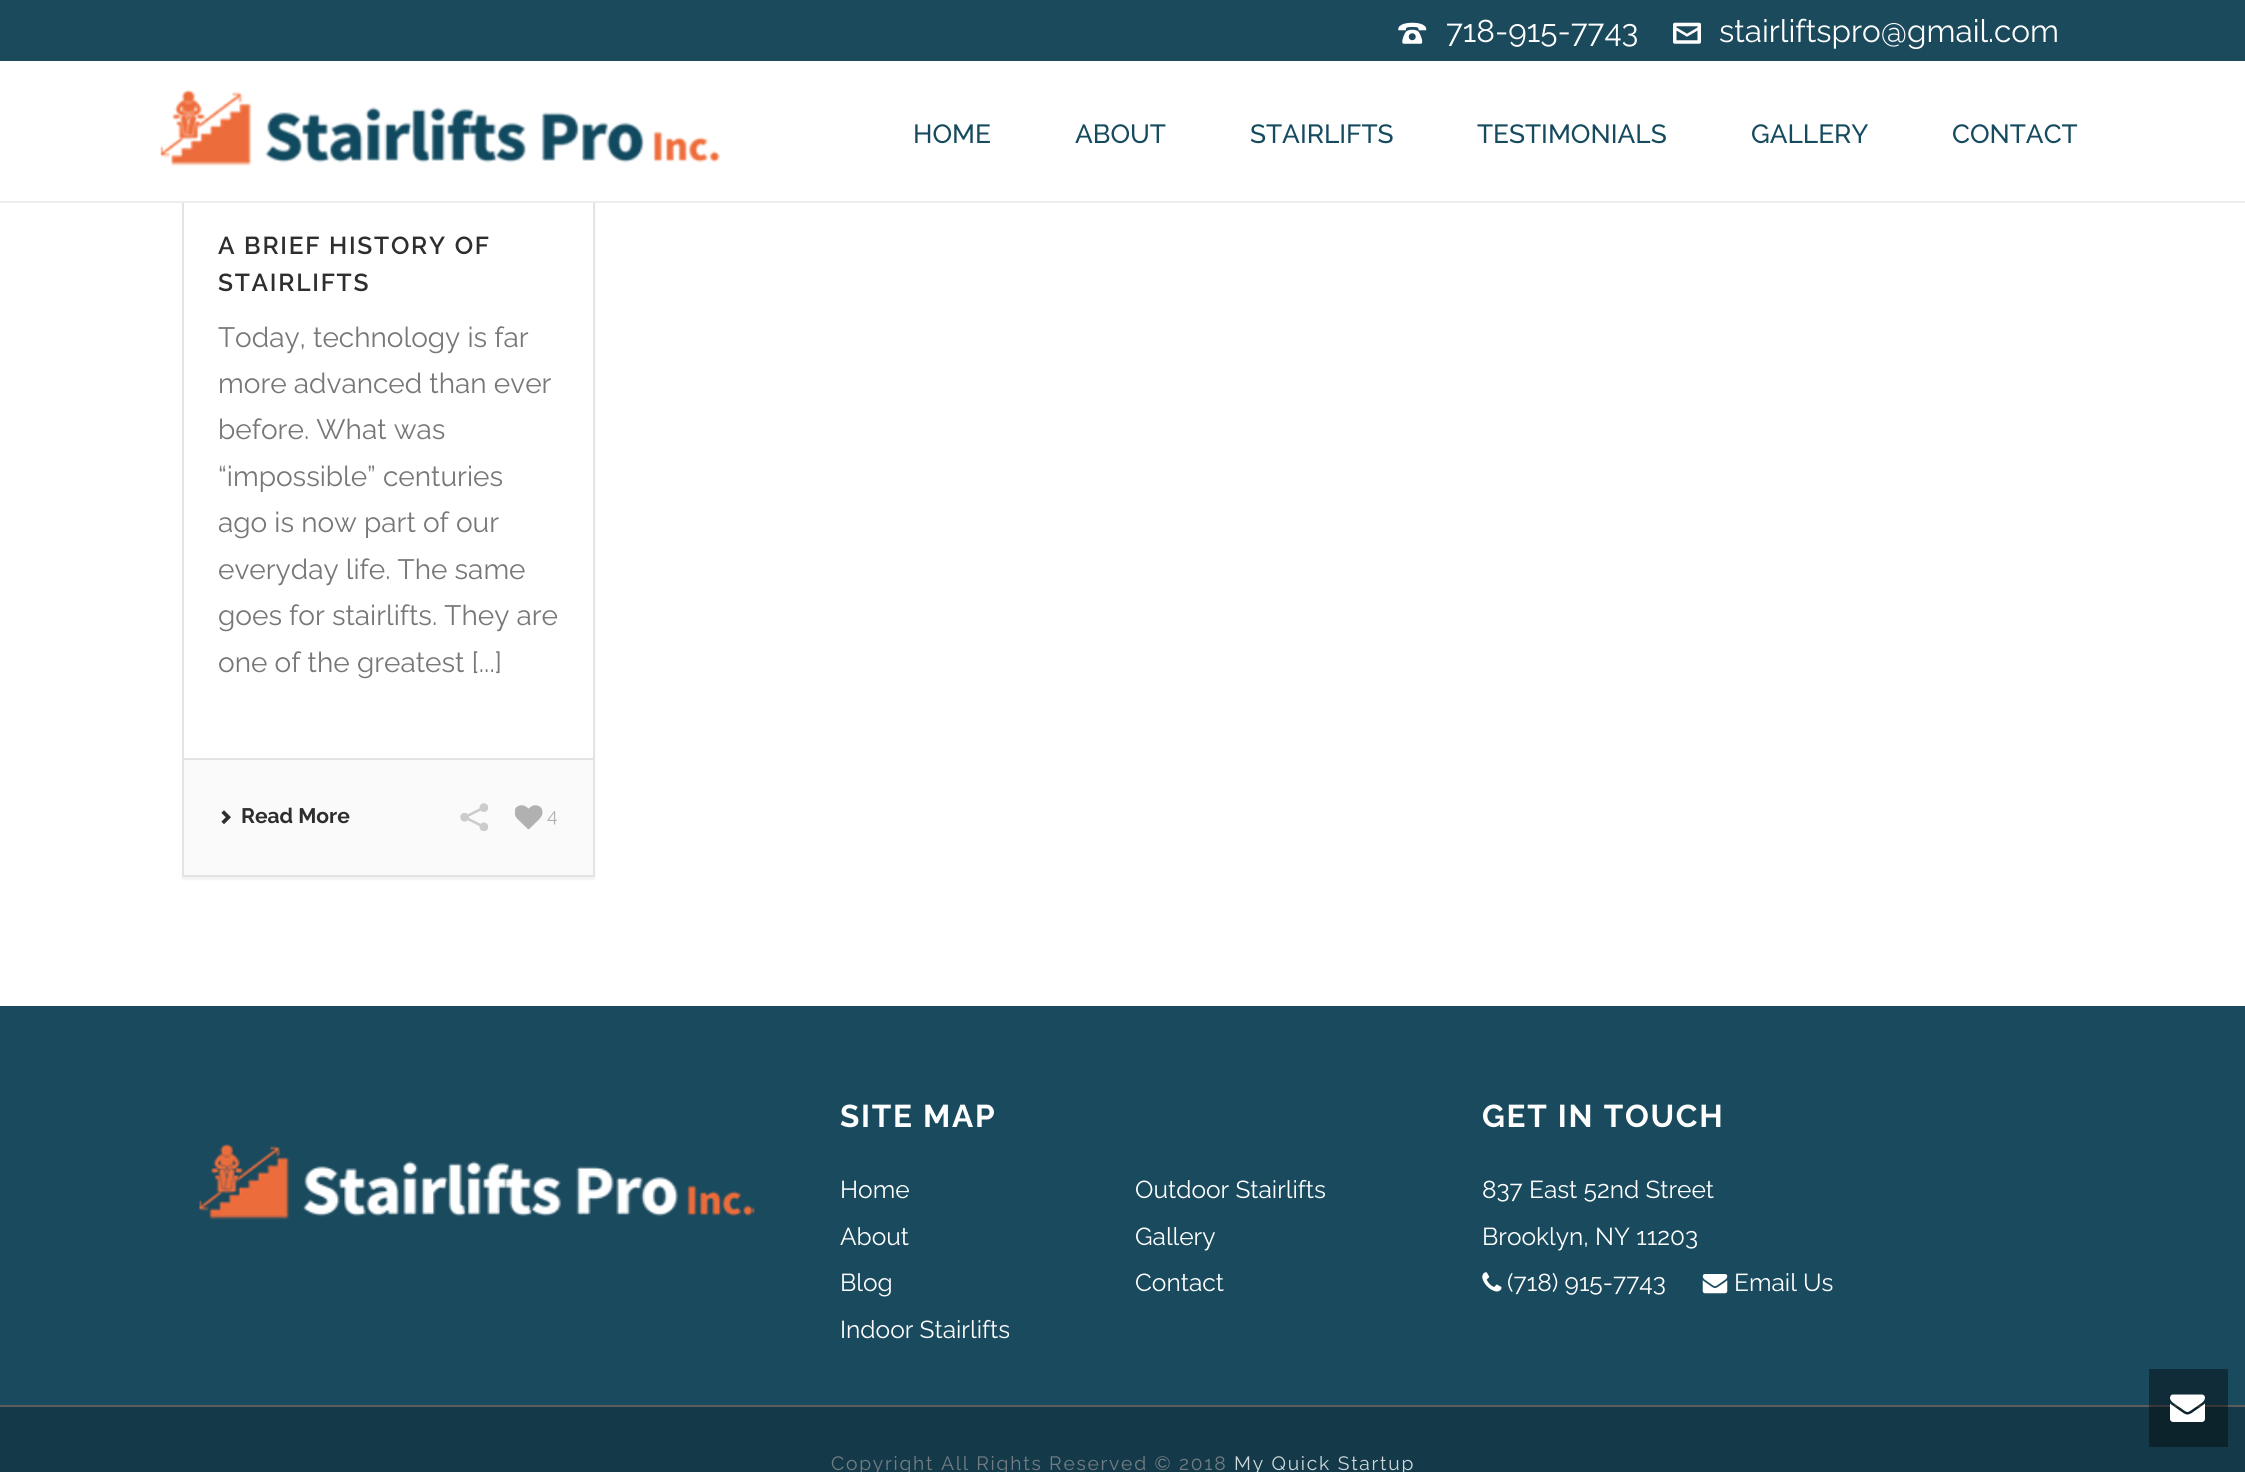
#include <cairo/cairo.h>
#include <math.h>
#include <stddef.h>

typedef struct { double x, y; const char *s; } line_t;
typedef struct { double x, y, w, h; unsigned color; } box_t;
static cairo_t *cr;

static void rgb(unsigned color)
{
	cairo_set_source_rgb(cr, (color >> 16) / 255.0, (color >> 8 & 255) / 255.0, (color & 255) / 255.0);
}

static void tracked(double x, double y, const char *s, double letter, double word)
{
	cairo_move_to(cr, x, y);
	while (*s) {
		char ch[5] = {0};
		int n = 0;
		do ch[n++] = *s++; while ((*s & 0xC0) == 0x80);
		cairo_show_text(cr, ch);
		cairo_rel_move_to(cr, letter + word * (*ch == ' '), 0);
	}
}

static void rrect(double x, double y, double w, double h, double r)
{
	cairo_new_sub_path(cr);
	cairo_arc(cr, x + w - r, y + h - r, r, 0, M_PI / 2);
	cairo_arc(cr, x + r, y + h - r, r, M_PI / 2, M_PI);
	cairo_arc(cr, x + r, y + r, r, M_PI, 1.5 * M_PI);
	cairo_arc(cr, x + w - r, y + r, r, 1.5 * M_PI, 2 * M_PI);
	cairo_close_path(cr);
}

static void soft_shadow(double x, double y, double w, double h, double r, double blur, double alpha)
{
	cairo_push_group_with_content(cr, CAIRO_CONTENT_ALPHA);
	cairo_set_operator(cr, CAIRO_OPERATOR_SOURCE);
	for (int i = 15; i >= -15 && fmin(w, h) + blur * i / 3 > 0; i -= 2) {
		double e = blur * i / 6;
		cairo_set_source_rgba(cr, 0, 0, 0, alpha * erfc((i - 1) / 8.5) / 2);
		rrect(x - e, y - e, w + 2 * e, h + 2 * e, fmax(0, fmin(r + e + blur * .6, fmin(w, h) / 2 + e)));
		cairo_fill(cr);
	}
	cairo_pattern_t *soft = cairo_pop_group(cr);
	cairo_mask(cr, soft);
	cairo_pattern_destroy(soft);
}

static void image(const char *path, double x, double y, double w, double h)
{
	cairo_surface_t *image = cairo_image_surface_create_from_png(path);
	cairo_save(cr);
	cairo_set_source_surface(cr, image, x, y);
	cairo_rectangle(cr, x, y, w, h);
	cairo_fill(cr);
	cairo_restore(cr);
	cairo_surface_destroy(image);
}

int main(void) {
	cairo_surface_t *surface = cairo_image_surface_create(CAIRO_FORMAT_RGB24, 2245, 1472);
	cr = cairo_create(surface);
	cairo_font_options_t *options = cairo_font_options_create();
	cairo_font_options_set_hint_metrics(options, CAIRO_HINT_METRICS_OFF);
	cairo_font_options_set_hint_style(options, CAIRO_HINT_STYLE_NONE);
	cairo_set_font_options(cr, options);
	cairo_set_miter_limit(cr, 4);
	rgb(0xffffff);
	cairo_paint(cr);
	rgb(0x1c4a5d);
	cairo_rectangle(cr, 0, 0, 2245, 61);
	cairo_fill(cr);
	image("img/1.png", 1398, 22, 29, 22);
	image("img/2.png", 1673, 22, 28, 22);
	rgb(0x000000);
	soft_shadow(182, 191, 413, 689, 0, 1, 0.05);
	rgb(0xffffff);
	cairo_rectangle(cr, 184, 203, 409, 555);
	cairo_fill(cr);
	cairo_rectangle(cr, 183, 188, 411, 688);
	rgb(0xe3e3e3);
	cairo_stroke(cr);
	rgb(0xededed);
	cairo_rectangle(cr, 0, 201, 2245, 2);
	cairo_fill(cr);
	image("img/3.png", 160, 89, 561, 77);
	{
		static const box_t items[] = {
			{181, 187, 415, 14, 0xffffff},
			{184, 760, 409, 115, 0xfafafa},
			{184, 758, 409, 2, 0xe3e3e3},
		};
		for (size_t i = 0; i < sizeof items / sizeof *items; i++) {
			rgb(items[i].color);
			cairo_rectangle(cr, items[i].x, items[i].y, items[i].w, items[i].h);
			cairo_fill(cr);
		}
	}
	image("img/4.png", 221, 810, 10, 14);
	image("img/5.png", 460, 803, 28, 28);
	image("img/6.png", 515, 805, 28, 25);
	rgb(0x194a5e);
	cairo_rectangle(cr, 0, 1006, 2245, 399);
	cairo_fill(cr);
	rgb(0x0f2c38);
	cairo_rectangle(cr, 2149, 1369, 79, 36);
	cairo_fill(cr);
	image("img/7.png", 199, 1143, 556, 77);
	image("img/8.png", 1482, 1272, 20, 20);
	image("img/9.png", 1702, 1274, 26, 20);
	{
		static const box_t items[] = {
			{0, 1407, 2245, 65, 0x143a4a},
			{2149, 1407, 79, 40, 0x0c232c},
			{0, 1405, 2245, 2, 0x5c5c5c},
			{2149, 1405, 79, 2, 0x373737},
		};
		for (size_t i = 0; i < sizeof items / sizeof *items; i++) {
			rgb(items[i].color);
			cairo_rectangle(cr, items[i].x, items[i].y, items[i].w, items[i].h);
			cairo_fill(cr);
		}
	}
	image("img/10.png", 2170, 1394, 35, 28);
	cairo_select_font_face(cr, "Raleway", CAIRO_FONT_SLANT_NORMAL, CAIRO_FONT_WEIGHT_NORMAL);
	cairo_set_font_size(cr, 31.5);
	rgb(0xffffff);
	cairo_move_to(cr, 1446, 42);
	cairo_show_text(cr, "718-915-7743");
	cairo_move_to(cr, 1719, 42);
	cairo_show_text(cr, "stairliftspro@gmail.com");
	cairo_select_font_face(cr, "Raleway Medium", CAIRO_FONT_SLANT_NORMAL, CAIRO_FONT_WEIGHT_NORMAL);
	cairo_set_font_size(cr, 26.25);
	rgb(0x164a5f);
	{
		static const line_t items[] = {
			{913, 143, "HOME"},
			{1075, 143, "ABOUT"},
			{1250, 143, "STAIRLIFTS"},
			{1477, 143, "TESTIMONIALS"},
			{1751, 143, "GALLERY"},
			{1952, 143, "CONTACT"},
		};
		for (size_t i = 0; i < sizeof items / sizeof *items; i++) {
			cairo_move_to(cr, items[i].x, items[i].y);
			cairo_show_text(cr, items[i].s);
		}
	}
	cairo_select_font_face(cr, "Raleway SemiBold", CAIRO_FONT_SLANT_NORMAL, CAIRO_FONT_WEIGHT_NORMAL);
	cairo_set_font_size(cr, 24.5);
	rgb(0x2e2e2e);
	tracked(218, 254, "A BRIEF HISTORY OF", 1.75, 0);
	tracked(218, 291, "STAIRLIFTS", 1.75, 0);
	cairo_select_font_face(cr, "Raleway", CAIRO_FONT_SLANT_NORMAL, CAIRO_FONT_WEIGHT_NORMAL);
	cairo_set_font_size(cr, 28);
	rgb(0x777777);
	{
		static const line_t items[] = {
			{218, 347, "Today, technology is far"},
			{218, 393, "more advanced than ever"},
			{218, 439, "before. What was"},
			{218, 486, "“impossible” centuries"},
			{218, 532, "ago is now part of our"},
			{218, 579, "everyday life. The same"},
			{218, 625, "goes for stairlifts. They are"},
			{218, 672, "one of the greatest [...]"},
		};
		for (size_t i = 0; i < sizeof items / sizeof *items; i++) {
			cairo_move_to(cr, items[i].x, items[i].y);
			cairo_show_text(cr, items[i].s);
		}
	}
	cairo_select_font_face(cr, "Raleway", CAIRO_FONT_SLANT_NORMAL, CAIRO_FONT_WEIGHT_BOLD);
	cairo_set_font_size(cr, 21);
	rgb(0x2e2e2e);
	cairo_move_to(cr, 241, 823);
	cairo_show_text(cr, "Read More");
	cairo_select_font_face(cr, "Raleway", CAIRO_FONT_SLANT_NORMAL, CAIRO_FONT_WEIGHT_NORMAL);
	cairo_set_font_size(cr, 19.25);
	rgb(0xb1b1b1);
	cairo_move_to(cr, 547, 822);
	cairo_show_text(cr, "4");
	cairo_select_font_face(cr, "Raleway", CAIRO_FONT_SLANT_NORMAL, CAIRO_FONT_WEIGHT_BOLD);
	cairo_set_font_size(cr, 31.5);
	rgb(0xffffff);
	tracked(840, 1127, "SITE MAP", 1.75, 0);
	cairo_select_font_face(cr, "Raleway", CAIRO_FONT_SLANT_NORMAL, CAIRO_FONT_WEIGHT_NORMAL);
	cairo_set_font_size(cr, 24.5);
	{
		static const line_t items[] = {
			{840, 1198, "Home"},
			{1135, 1198, "Outdoor Stairlifts"},
			{840, 1245, "About"},
			{1135, 1245, "Gallery"},
			{840, 1291, "Blog"},
			{1135, 1291, "Contact"},
			{840, 1338, "Indoor Stairlifts"},
		};
		for (size_t i = 0; i < sizeof items / sizeof *items; i++) {
			cairo_move_to(cr, items[i].x, items[i].y);
			cairo_show_text(cr, items[i].s);
		}
	}
	cairo_select_font_face(cr, "Raleway", CAIRO_FONT_SLANT_NORMAL, CAIRO_FONT_WEIGHT_BOLD);
	cairo_set_font_size(cr, 31.5);
	tracked(1482, 1127, "GET IN TOUCH", 1.75, 0);
	cairo_select_font_face(cr, "Raleway", CAIRO_FONT_SLANT_NORMAL, CAIRO_FONT_WEIGHT_NORMAL);
	cairo_set_font_size(cr, 24.5);
	{
		static const line_t items[] = {
			{1482, 1198, "837 East 52nd Street"},
			{1482, 1245, "Brooklyn, NY 11203"},
			{1507, 1291, "(718) 915-7743"},
			{1734, 1291, "Email Us"},
		};
		for (size_t i = 0; i < sizeof items / sizeof *items; i++) {
			cairo_move_to(cr, items[i].x, items[i].y);
			cairo_show_text(cr, items[i].s);
		}
	}
	cairo_set_font_size(cr, 19.25);
	rgb(0x747d83);
	tracked(831, 1470, "Copyright All Rights Reserved © 2018", 1.75, 0);
	rgb(0xd0d8db);
	tracked(1234, 1470, "My Quick Startup", 1.75, 0);
	cairo_surface_write_to_png(surface, "page.png");
	cairo_font_options_destroy(options);
	cairo_destroy(cr);
	cairo_surface_destroy(surface);
	return 0;
}
